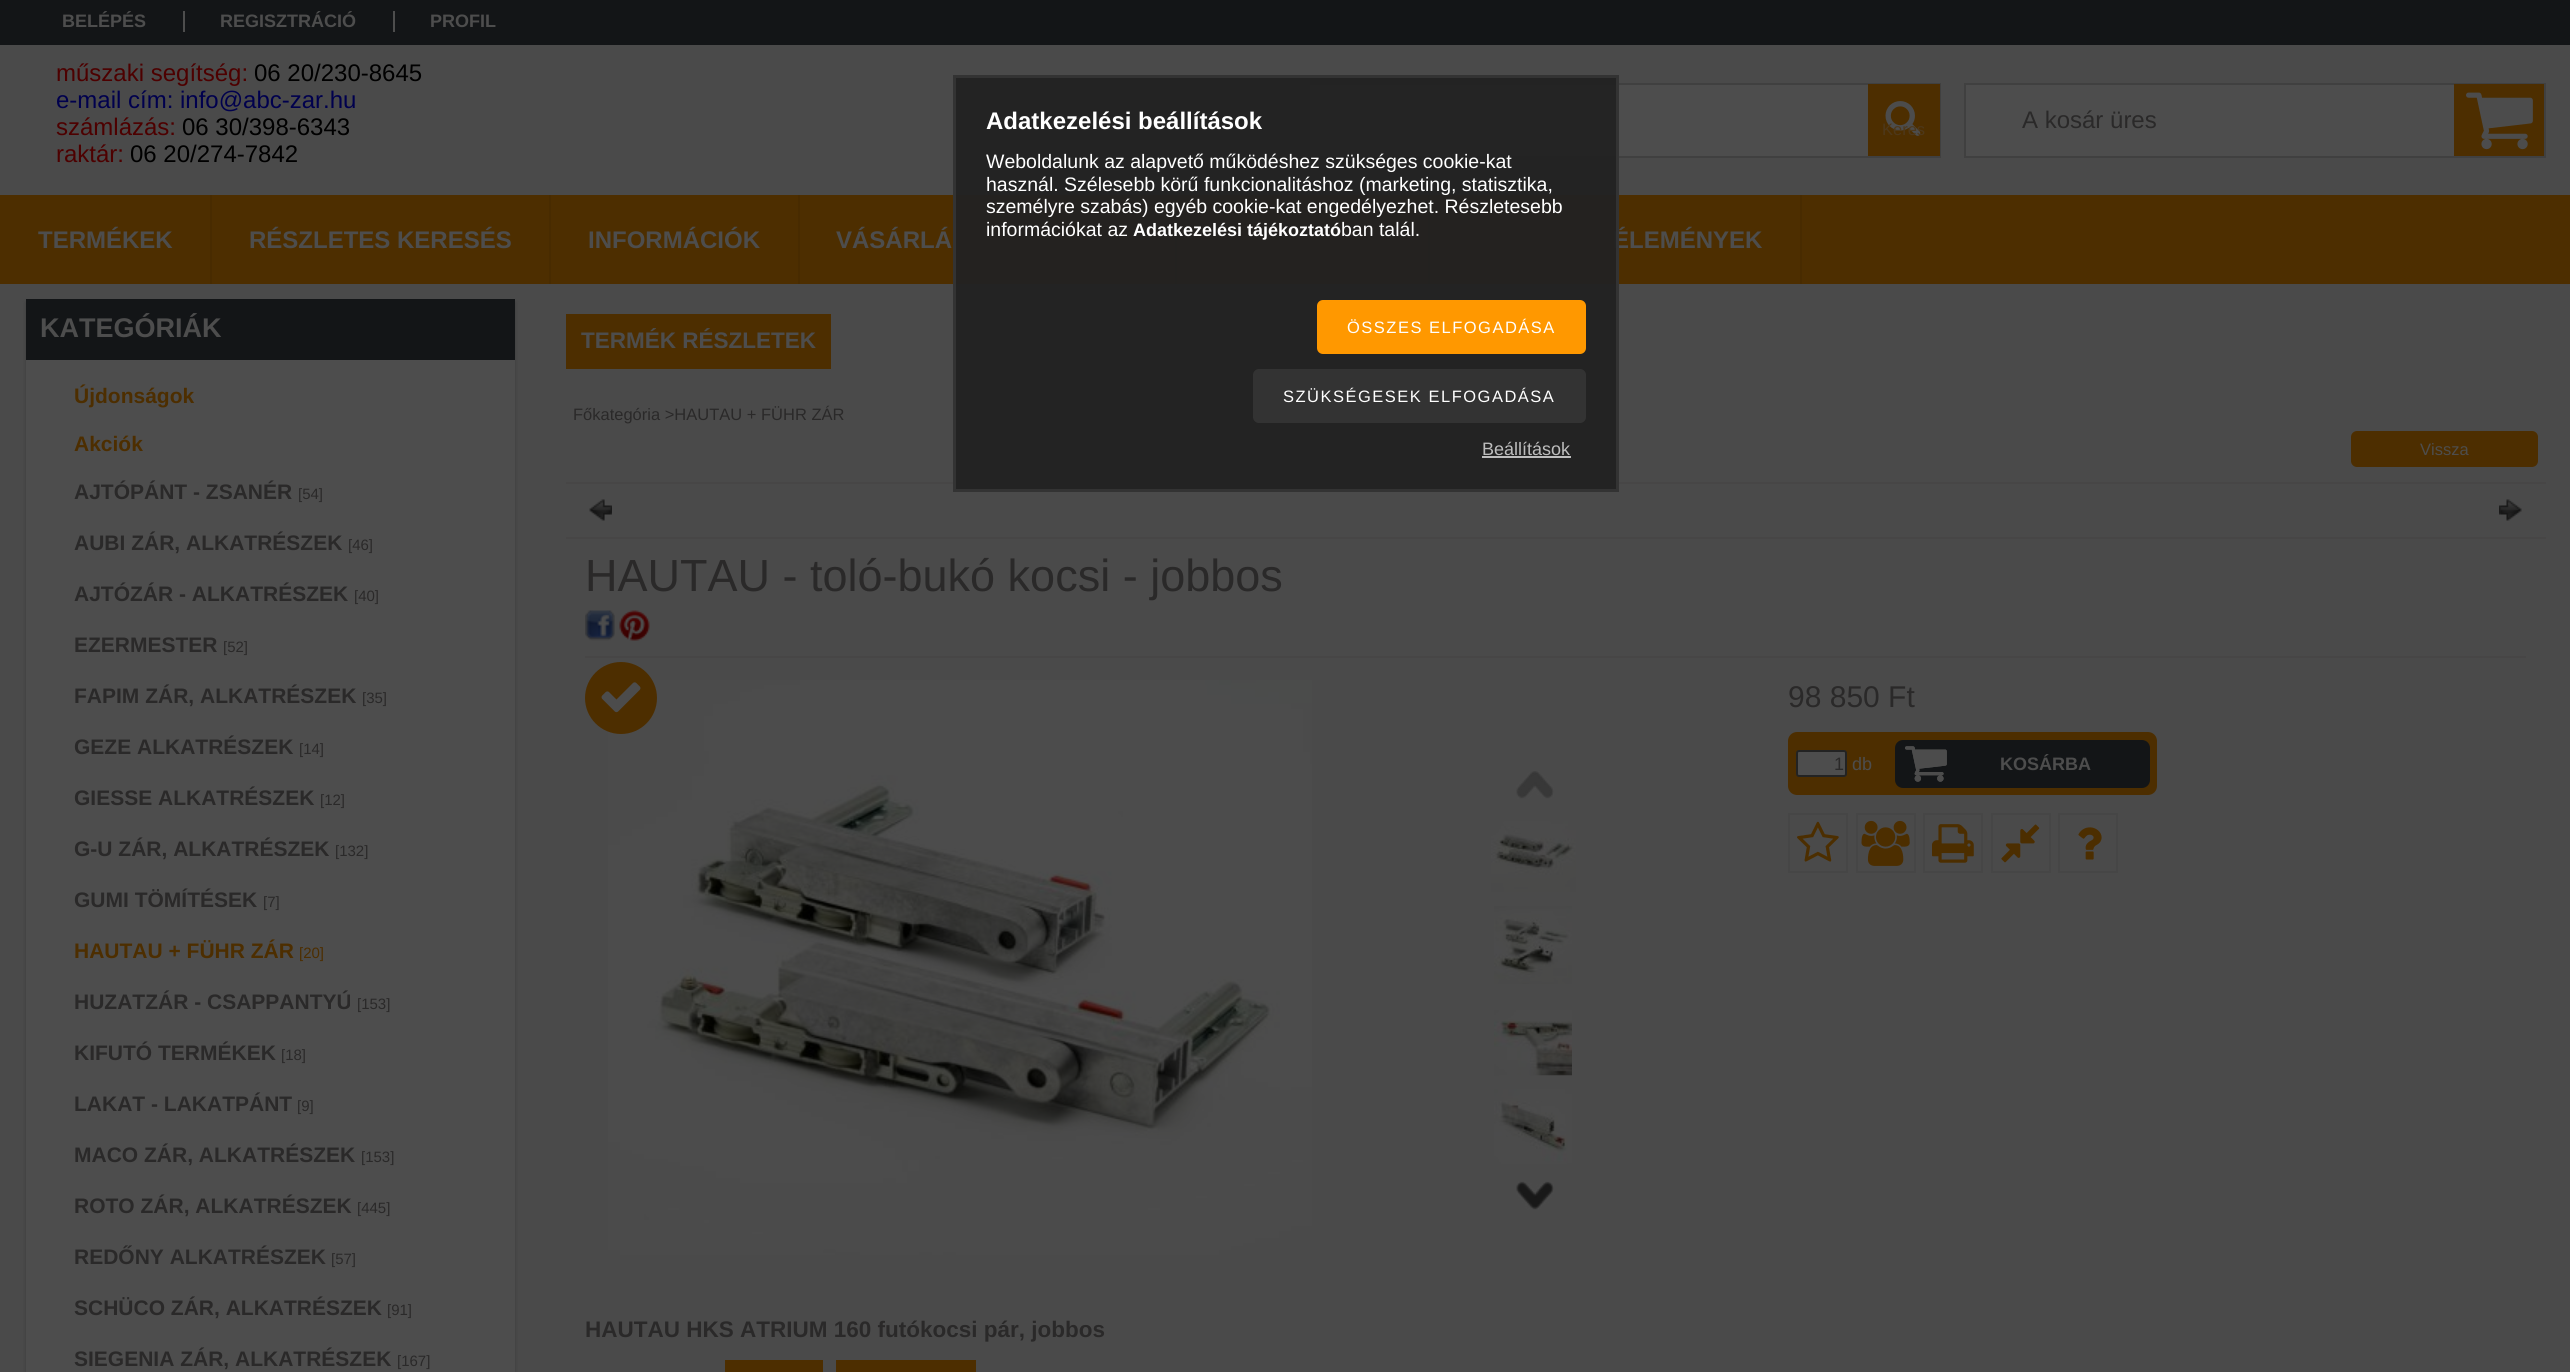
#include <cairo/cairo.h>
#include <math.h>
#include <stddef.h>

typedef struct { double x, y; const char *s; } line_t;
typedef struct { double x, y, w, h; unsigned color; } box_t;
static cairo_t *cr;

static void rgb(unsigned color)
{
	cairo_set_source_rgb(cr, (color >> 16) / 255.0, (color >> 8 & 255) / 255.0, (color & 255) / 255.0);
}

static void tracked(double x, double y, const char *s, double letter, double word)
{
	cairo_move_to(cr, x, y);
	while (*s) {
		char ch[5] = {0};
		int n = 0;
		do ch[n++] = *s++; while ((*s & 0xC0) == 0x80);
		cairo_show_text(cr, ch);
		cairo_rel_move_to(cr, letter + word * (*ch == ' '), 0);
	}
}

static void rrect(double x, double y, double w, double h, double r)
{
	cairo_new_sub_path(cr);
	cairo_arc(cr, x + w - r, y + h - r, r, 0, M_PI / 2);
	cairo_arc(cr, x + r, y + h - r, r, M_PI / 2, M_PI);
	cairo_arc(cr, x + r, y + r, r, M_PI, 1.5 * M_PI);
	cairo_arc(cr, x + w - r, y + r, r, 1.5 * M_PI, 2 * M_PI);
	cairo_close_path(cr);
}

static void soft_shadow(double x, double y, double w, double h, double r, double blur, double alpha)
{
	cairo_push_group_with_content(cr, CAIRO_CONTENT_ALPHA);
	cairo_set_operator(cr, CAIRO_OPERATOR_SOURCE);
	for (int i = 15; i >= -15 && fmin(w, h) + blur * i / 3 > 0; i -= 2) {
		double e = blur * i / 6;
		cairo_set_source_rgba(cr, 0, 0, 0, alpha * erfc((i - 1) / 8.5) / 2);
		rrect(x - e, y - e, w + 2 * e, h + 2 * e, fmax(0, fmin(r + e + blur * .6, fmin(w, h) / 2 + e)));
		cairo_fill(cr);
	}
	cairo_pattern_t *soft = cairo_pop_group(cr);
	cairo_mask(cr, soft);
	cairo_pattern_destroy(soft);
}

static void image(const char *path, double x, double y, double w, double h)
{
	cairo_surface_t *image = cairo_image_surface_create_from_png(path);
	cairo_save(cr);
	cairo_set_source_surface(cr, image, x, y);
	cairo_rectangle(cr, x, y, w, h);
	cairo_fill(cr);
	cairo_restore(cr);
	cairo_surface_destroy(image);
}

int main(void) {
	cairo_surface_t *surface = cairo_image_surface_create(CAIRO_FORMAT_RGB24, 2570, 1372);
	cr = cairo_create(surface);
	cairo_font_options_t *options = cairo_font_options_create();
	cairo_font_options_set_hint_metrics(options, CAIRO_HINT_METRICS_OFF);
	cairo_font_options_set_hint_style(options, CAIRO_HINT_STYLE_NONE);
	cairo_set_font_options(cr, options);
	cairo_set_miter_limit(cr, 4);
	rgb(0x4a4a4a);
	cairo_paint(cr);
	{
		static const box_t items[] = {
			{0, 0, 2570, 45, 0x131517},
			{183, 11, 2, 21, 0x4d4d4d},
			{393, 11, 2, 21, 0x4d4d4d},
			{1310, 85, 558, 71, 0x4d4d4d},
		};
		for (size_t i = 0; i < sizeof items / sizeof *items; i++) {
			rgb(items[i].color);
			cairo_rectangle(cr, items[i].x, items[i].y, items[i].w, items[i].h);
			cairo_fill(cr);
		}
	}
	cairo_rectangle(cr, 1309, 84, 631, 73);
	rgb(0x404040);
	cairo_stroke(cr);
	rgb(0x4d2e00);
	cairo_rectangle(cr, 1868, 84, 72, 72);
	cairo_fill(cr);
	image("img/1.png", 1885, 101, 36, 35);
	rgb(0x4d4d4d);
	cairo_rectangle(cr, 1966, 85, 488, 71);
	cairo_fill(cr);
	cairo_rectangle(cr, 1965, 84, 580, 73);
	rgb(0x404040);
	cairo_stroke(cr);
	rgb(0x4d2e00);
	cairo_rectangle(cr, 2454, 84, 90, 72);
	cairo_fill(cr);
	image("img/2.png", 2466, 92, 67, 58);
	cairo_rectangle(cr, 0, 195, 2570, 89);
	cairo_fill(cr);
	cairo_set_source_rgba(cr, 0, 0, 0, 0.07);
	cairo_rectangle(cr, 210, 195, 2, 89);
	cairo_fill(cr);
	cairo_rectangle(cr, 549, 195, 2, 89);
	cairo_fill(cr);
	cairo_rectangle(cr, 798, 195, 2, 89);
	cairo_fill(cr);
	cairo_rectangle(cr, 1175, 195, 2, 89);
	cairo_fill(cr);
	cairo_rectangle(cr, 1428, 195, 2, 89);
	cairo_fill(cr);
	cairo_rectangle(cr, 1800, 195, 2, 89);
	cairo_fill(cr);
	rgb(0x000000);
	soft_shadow(26, 302, 489, 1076, 0, 2, 0.2);
	{
		static const box_t items[] = {
			{26, 299, 489, 61, 0x131517},
			{26, 360, 489, 1012, 0x4d4d4d},
			{566, 314, 265, 55, 0x4d2e00},
		};
		for (size_t i = 0; i < sizeof items / sizeof *items; i++) {
			rgb(items[i].color);
			cairo_rectangle(cr, items[i].x, items[i].y, items[i].w, items[i].h);
			cairo_fill(cr);
		}
	}
	rrect(2351, 431, 187, 36, 6);
	cairo_fill(cr);
	rgb(0x474646);
	cairo_rectangle(cr, 566, 482, 1980, 2);
	cairo_fill(cr);
	image("img/3.png", 589, 499, 23, 22);
	image("img/4.png", 2499, 499, 23, 22);
	cairo_rectangle(cr, 566, 537, 1980, 2);
	cairo_fill(cr);
	cairo_rectangle(cr, 585, 656, 1941, 2);
	cairo_fill(cr);
	image("img/5.png", 585, 610, 30, 31);
	image("img/6.png", 619, 610, 31, 31);
	image("img/8.png", 608, 680, 704, 575);
	rgb(0x4d2e00);
	cairo_arc(cr, 621, 698, 36, 0, 2 * M_PI);
	cairo_fill(cr);
	image("img/7.png", 601, 682, 40, 31);
	image("img/9.png", 1516, 771, 38, 28);
	image("img/10.png", 1491, 821, 85, 71);
	image("img/11.png", 1494, 906, 78, 78);
	image("img/12.png", 1494, 1010, 78, 66);
	image("img/13.png", 1494, 1089, 78, 75);
	image("img/14.png", 1516, 1181, 38, 29);
	rrect(1788, 732, 369, 63, 9);
	cairo_fill(cr);
	rgb(0x4d4d4d);
	rrect(1797, 751, 49, 25, 2);
	cairo_fill_preserve(cr);
	rgb(0x232323);
	cairo_stroke(cr);
	rgb(0x131517);
	rrect(1895, 740, 255, 48, 8);
	cairo_fill(cr);
	image("img/15.png", 1905, 746, 42, 36);
	image("img/16.png", 1905, 746, 42, 36);
	cairo_rectangle(cr, 1789, 814, 58, 58);
	rgb(0x464646);
	cairo_stroke(cr);
	image("img/17.png", 1797, 821, 42, 41);
	cairo_rectangle(cr, 1857, 814, 58, 58);
	cairo_stroke(cr);
	image("img/18.png", 1861, 820, 49, 46);
	cairo_rectangle(cr, 1924, 814, 58, 58);
	cairo_stroke(cr);
	image("img/19.png", 1932, 824, 42, 39);
	cairo_rectangle(cr, 1992, 814, 58, 58);
	cairo_stroke(cr);
	image("img/20.png", 2001, 824, 39, 39);
	cairo_rectangle(cr, 2059, 814, 58, 58);
	cairo_stroke(cr);
	image("img/21.png", 2078, 827, 24, 33);
	rgb(0x4d2e00);
	cairo_rectangle(cr, 725, 1360, 98, 12);
	cairo_fill(cr);
	cairo_rectangle(cr, 836, 1360, 140, 12);
	cairo_fill(cr);
	cairo_select_font_face(cr, "Liberation Sans", CAIRO_FONT_SLANT_NORMAL, CAIRO_FONT_WEIGHT_BOLD);
	cairo_set_font_size(cr, 18);
	rgb(0x4d4d4d);
	{
		static const line_t items[] = {
			{62, 27, "BELÉPÉS"},
			{220, 27, "REGISZTRÁCIÓ"},
			{430, 27, "PROFIL"},
		};
		for (size_t i = 0; i < sizeof items / sizeof *items; i++) {
			cairo_move_to(cr, items[i].x, items[i].y);
			cairo_show_text(cr, items[i].s);
		}
	}
	cairo_select_font_face(cr, "Liberation Sans", CAIRO_FONT_SLANT_NORMAL, CAIRO_FONT_WEIGHT_NORMAL);
	cairo_set_font_size(cr, 24);
	rgb(0x4d0000);
	cairo_move_to(cr, 56, 81);
	cairo_show_text(cr, "műszaki segítség:");
	rgb(0x000000);
	cairo_move_to(cr, 254, 81);
	cairo_show_text(cr, "06 20/230-8645");
	rgb(0x00004d);
	cairo_move_to(cr, 56, 108);
	cairo_show_text(cr, "e-mail cím: info@abc-zar.hu");
	rgb(0x4d0000);
	cairo_move_to(cr, 56, 135);
	cairo_show_text(cr, "számlázás:");
	rgb(0x000000);
	cairo_move_to(cr, 182, 135);
	cairo_show_text(cr, "06 30/398-6343");
	rgb(0x4d0000);
	cairo_move_to(cr, 56, 162);
	cairo_show_text(cr, "raktár:");
	rgb(0x000000);
	cairo_move_to(cr, 130, 162);
	cairo_show_text(cr, "06 20/274-7842");
	cairo_set_font_size(cr, 16.5);
	rgb(0x4d381b);
	cairo_move_to(cr, 1882, 135);
	cairo_show_text(cr, "Keres");
	cairo_set_font_size(cr, 24);
	rgb(0x2a2929);
	cairo_move_to(cr, 2022, 128);
	cairo_show_text(cr, "A kosár üres");
	cairo_select_font_face(cr, "Liberation Sans", CAIRO_FONT_SLANT_NORMAL, CAIRO_FONT_WEIGHT_BOLD);
	rgb(0x4d4d4d);
	{
		static const line_t items[] = {
			{38, 248, "TERMÉKEK"},
			{249, 248, "RÉSZLETES KERESÉS"},
			{588, 248, "INFORMÁCIÓK"},
			{836, 248, "VÁSÁRLÁ"},
			{1613, 248, "ÉLEMÉNYEK"},
		};
		for (size_t i = 0; i < sizeof items / sizeof *items; i++) {
			cairo_move_to(cr, items[i].x, items[i].y);
			cairo_show_text(cr, items[i].s);
		}
	}
	cairo_set_font_size(cr, 27);
	cairo_move_to(cr, 40, 337);
	cairo_show_text(cr, "KATEGÓRIÁK");
	cairo_set_font_size(cr, 21);
	rgb(0x4d2e00);
	cairo_move_to(cr, 74, 403);
	cairo_show_text(cr, "Újdonságok");
	cairo_move_to(cr, 74, 451);
	cairo_show_text(cr, "Akciók");
	rgb(0x2a2929);
	cairo_move_to(cr, 74, 499);
	cairo_show_text(cr, "AJTÓPÁNT - ZSANÉR");
	cairo_select_font_face(cr, "Liberation Sans", CAIRO_FONT_SLANT_NORMAL, CAIRO_FONT_WEIGHT_NORMAL);
	cairo_set_font_size(cr, 15);
	cairo_move_to(cr, 298, 499);
	cairo_show_text(cr, "[54]");
	cairo_select_font_face(cr, "Liberation Sans", CAIRO_FONT_SLANT_NORMAL, CAIRO_FONT_WEIGHT_BOLD);
	cairo_set_font_size(cr, 21);
	cairo_move_to(cr, 74, 550);
	cairo_show_text(cr, "AUBI ZÁR, ALKATRÉSZEK");
	cairo_select_font_face(cr, "Liberation Sans", CAIRO_FONT_SLANT_NORMAL, CAIRO_FONT_WEIGHT_NORMAL);
	cairo_set_font_size(cr, 15);
	cairo_move_to(cr, 348, 550);
	cairo_show_text(cr, "[46]");
	cairo_select_font_face(cr, "Liberation Sans", CAIRO_FONT_SLANT_NORMAL, CAIRO_FONT_WEIGHT_BOLD);
	cairo_set_font_size(cr, 21);
	cairo_move_to(cr, 74, 601);
	cairo_show_text(cr, "AJTÓZÁR - ALKATRÉSZEK");
	cairo_select_font_face(cr, "Liberation Sans", CAIRO_FONT_SLANT_NORMAL, CAIRO_FONT_WEIGHT_NORMAL);
	cairo_set_font_size(cr, 15);
	cairo_move_to(cr, 354, 601);
	cairo_show_text(cr, "[40]");
	cairo_select_font_face(cr, "Liberation Sans", CAIRO_FONT_SLANT_NORMAL, CAIRO_FONT_WEIGHT_BOLD);
	cairo_set_font_size(cr, 21);
	cairo_move_to(cr, 74, 652);
	cairo_show_text(cr, "EZERMESTER");
	cairo_select_font_face(cr, "Liberation Sans", CAIRO_FONT_SLANT_NORMAL, CAIRO_FONT_WEIGHT_NORMAL);
	cairo_set_font_size(cr, 15);
	cairo_move_to(cr, 223, 652);
	cairo_show_text(cr, "[52]");
	cairo_select_font_face(cr, "Liberation Sans", CAIRO_FONT_SLANT_NORMAL, CAIRO_FONT_WEIGHT_BOLD);
	cairo_set_font_size(cr, 21);
	cairo_move_to(cr, 74, 703);
	cairo_show_text(cr, "FAPIM ZÁR, ALKATRÉSZEK");
	cairo_select_font_face(cr, "Liberation Sans", CAIRO_FONT_SLANT_NORMAL, CAIRO_FONT_WEIGHT_NORMAL);
	cairo_set_font_size(cr, 15);
	cairo_move_to(cr, 362, 703);
	cairo_show_text(cr, "[35]");
	cairo_select_font_face(cr, "Liberation Sans", CAIRO_FONT_SLANT_NORMAL, CAIRO_FONT_WEIGHT_BOLD);
	cairo_set_font_size(cr, 21);
	cairo_move_to(cr, 74, 754);
	cairo_show_text(cr, "GEZE ALKATRÉSZEK");
	cairo_select_font_face(cr, "Liberation Sans", CAIRO_FONT_SLANT_NORMAL, CAIRO_FONT_WEIGHT_NORMAL);
	cairo_set_font_size(cr, 15);
	cairo_move_to(cr, 299, 754);
	cairo_show_text(cr, "[14]");
	cairo_select_font_face(cr, "Liberation Sans", CAIRO_FONT_SLANT_NORMAL, CAIRO_FONT_WEIGHT_BOLD);
	cairo_set_font_size(cr, 21);
	cairo_move_to(cr, 74, 805);
	cairo_show_text(cr, "GIESSE ALKATRÉSZEK");
	cairo_select_font_face(cr, "Liberation Sans", CAIRO_FONT_SLANT_NORMAL, CAIRO_FONT_WEIGHT_NORMAL);
	cairo_set_font_size(cr, 15);
	cairo_move_to(cr, 320, 805);
	cairo_show_text(cr, "[12]");
	cairo_select_font_face(cr, "Liberation Sans", CAIRO_FONT_SLANT_NORMAL, CAIRO_FONT_WEIGHT_BOLD);
	cairo_set_font_size(cr, 21);
	cairo_move_to(cr, 74, 856);
	cairo_show_text(cr, "G-U ZÁR, ALKATRÉSZEK");
	cairo_select_font_face(cr, "Liberation Sans", CAIRO_FONT_SLANT_NORMAL, CAIRO_FONT_WEIGHT_NORMAL);
	cairo_set_font_size(cr, 15);
	cairo_move_to(cr, 335, 856);
	cairo_show_text(cr, "[132]");
	cairo_select_font_face(cr, "Liberation Sans", CAIRO_FONT_SLANT_NORMAL, CAIRO_FONT_WEIGHT_BOLD);
	cairo_set_font_size(cr, 21);
	cairo_move_to(cr, 74, 907);
	cairo_show_text(cr, "GUMI TÖMÍTÉSEK");
	cairo_select_font_face(cr, "Liberation Sans", CAIRO_FONT_SLANT_NORMAL, CAIRO_FONT_WEIGHT_NORMAL);
	cairo_set_font_size(cr, 15);
	cairo_move_to(cr, 263, 907);
	cairo_show_text(cr, "[7]");
	cairo_select_font_face(cr, "Liberation Sans", CAIRO_FONT_SLANT_NORMAL, CAIRO_FONT_WEIGHT_BOLD);
	cairo_set_font_size(cr, 21);
	rgb(0x4d2e00);
	cairo_move_to(cr, 74, 958);
	cairo_show_text(cr, "HAUTAU + FÜHR ZÁR");
	cairo_select_font_face(cr, "Liberation Sans", CAIRO_FONT_SLANT_NORMAL, CAIRO_FONT_WEIGHT_NORMAL);
	cairo_set_font_size(cr, 15);
	cairo_move_to(cr, 299, 958);
	cairo_show_text(cr, "[20]");
	cairo_select_font_face(cr, "Liberation Sans", CAIRO_FONT_SLANT_NORMAL, CAIRO_FONT_WEIGHT_BOLD);
	cairo_set_font_size(cr, 21);
	rgb(0x2a2929);
	cairo_move_to(cr, 74, 1009);
	cairo_show_text(cr, "HUZATZÁR - CSAPPANTYÚ");
	cairo_select_font_face(cr, "Liberation Sans", CAIRO_FONT_SLANT_NORMAL, CAIRO_FONT_WEIGHT_NORMAL);
	cairo_set_font_size(cr, 15);
	cairo_move_to(cr, 357, 1009);
	cairo_show_text(cr, "[153]");
	cairo_select_font_face(cr, "Liberation Sans", CAIRO_FONT_SLANT_NORMAL, CAIRO_FONT_WEIGHT_BOLD);
	cairo_set_font_size(cr, 21);
	cairo_move_to(cr, 74, 1060);
	cairo_show_text(cr, "KIFUTÓ TERMÉKEK");
	cairo_select_font_face(cr, "Liberation Sans", CAIRO_FONT_SLANT_NORMAL, CAIRO_FONT_WEIGHT_NORMAL);
	cairo_set_font_size(cr, 15);
	cairo_move_to(cr, 281, 1060);
	cairo_show_text(cr, "[18]");
	cairo_select_font_face(cr, "Liberation Sans", CAIRO_FONT_SLANT_NORMAL, CAIRO_FONT_WEIGHT_BOLD);
	cairo_set_font_size(cr, 21);
	cairo_move_to(cr, 74, 1111);
	cairo_show_text(cr, "LAKAT - LAKATPÁNT");
	cairo_select_font_face(cr, "Liberation Sans", CAIRO_FONT_SLANT_NORMAL, CAIRO_FONT_WEIGHT_NORMAL);
	cairo_set_font_size(cr, 15);
	cairo_move_to(cr, 297, 1111);
	cairo_show_text(cr, "[9]");
	cairo_select_font_face(cr, "Liberation Sans", CAIRO_FONT_SLANT_NORMAL, CAIRO_FONT_WEIGHT_BOLD);
	cairo_set_font_size(cr, 21);
	cairo_move_to(cr, 74, 1162);
	cairo_show_text(cr, "MACO ZÁR, ALKATRÉSZEK");
	cairo_select_font_face(cr, "Liberation Sans", CAIRO_FONT_SLANT_NORMAL, CAIRO_FONT_WEIGHT_NORMAL);
	cairo_set_font_size(cr, 15);
	cairo_move_to(cr, 361, 1162);
	cairo_show_text(cr, "[153]");
	cairo_select_font_face(cr, "Liberation Sans", CAIRO_FONT_SLANT_NORMAL, CAIRO_FONT_WEIGHT_BOLD);
	cairo_set_font_size(cr, 21);
	cairo_move_to(cr, 74, 1213);
	cairo_show_text(cr, "ROTO ZÁR, ALKATRÉSZEK");
	cairo_select_font_face(cr, "Liberation Sans", CAIRO_FONT_SLANT_NORMAL, CAIRO_FONT_WEIGHT_NORMAL);
	cairo_set_font_size(cr, 15);
	cairo_move_to(cr, 357, 1213);
	cairo_show_text(cr, "[445]");
	cairo_select_font_face(cr, "Liberation Sans", CAIRO_FONT_SLANT_NORMAL, CAIRO_FONT_WEIGHT_BOLD);
	cairo_set_font_size(cr, 21);
	cairo_move_to(cr, 74, 1264);
	cairo_show_text(cr, "REDŐNY ALKATRÉSZEK");
	cairo_select_font_face(cr, "Liberation Sans", CAIRO_FONT_SLANT_NORMAL, CAIRO_FONT_WEIGHT_NORMAL);
	cairo_set_font_size(cr, 15);
	cairo_move_to(cr, 331, 1264);
	cairo_show_text(cr, "[57]");
	cairo_select_font_face(cr, "Liberation Sans", CAIRO_FONT_SLANT_NORMAL, CAIRO_FONT_WEIGHT_BOLD);
	cairo_set_font_size(cr, 21);
	cairo_move_to(cr, 74, 1315);
	cairo_show_text(cr, "SCHÜCO ZÁR, ALKATRÉSZEK");
	cairo_select_font_face(cr, "Liberation Sans", CAIRO_FONT_SLANT_NORMAL, CAIRO_FONT_WEIGHT_NORMAL);
	cairo_set_font_size(cr, 15);
	cairo_move_to(cr, 387, 1315);
	cairo_show_text(cr, "[91]");
	cairo_select_font_face(cr, "Liberation Sans", CAIRO_FONT_SLANT_NORMAL, CAIRO_FONT_WEIGHT_BOLD);
	cairo_set_font_size(cr, 21);
	cairo_move_to(cr, 74, 1366);
	cairo_show_text(cr, "SIEGENIA ZÁR, ALKATRÉSZEK");
	cairo_select_font_face(cr, "Liberation Sans", CAIRO_FONT_SLANT_NORMAL, CAIRO_FONT_WEIGHT_NORMAL);
	cairo_set_font_size(cr, 15);
	cairo_move_to(cr, 397, 1366);
	cairo_show_text(cr, "[167]");
	cairo_select_font_face(cr, "Liberation Sans", CAIRO_FONT_SLANT_NORMAL, CAIRO_FONT_WEIGHT_BOLD);
	cairo_set_font_size(cr, 22.5);
	rgb(0x4d4d4d);
	cairo_move_to(cr, 581, 348);
	cairo_show_text(cr, "TERMÉK RÉSZLETEK");
	cairo_select_font_face(cr, "Liberation Sans", CAIRO_FONT_SLANT_NORMAL, CAIRO_FONT_WEIGHT_NORMAL);
	cairo_set_font_size(cr, 16.5);
	rgb(0x2a2929);
	cairo_move_to(cr, 573, 420);
	cairo_show_text(cr, "Főkategória >HAUTAU + FÜHR ZÁR");
	rgb(0x4d4d4d);
	cairo_move_to(cr, 2420, 455);
	cairo_show_text(cr, "Vissza");
	cairo_set_font_size(cr, 45);
	rgb(0x2a2929);
	cairo_move_to(cr, 585, 591);
	cairo_show_text(cr, "HAUTAU - toló-bukó kocsi - jobbos");
	cairo_set_font_size(cr, 30);
	cairo_move_to(cr, 1788, 707);
	cairo_show_text(cr, "98 850 Ft");
	cairo_set_font_size(cr, 18);
	cairo_move_to(cr, 1834, 770);
	cairo_show_text(cr, "1");
	rgb(0x4d4d4d);
	cairo_move_to(cr, 1852, 770);
	cairo_show_text(cr, "db");
	cairo_select_font_face(cr, "Liberation Sans", CAIRO_FONT_SLANT_NORMAL, CAIRO_FONT_WEIGHT_BOLD);
	cairo_move_to(cr, 2000, 770);
	cairo_show_text(cr, "KOSÁRBA");
	cairo_set_font_size(cr, 22.5);
	rgb(0x2a2929);
	cairo_move_to(cr, 585, 1337);
	cairo_show_text(cr, "HAUTAU HKS ATRIUM 160 futókocsi pár, jobbos");
	cairo_set_source_rgba(cr, 0.133, 0.133, 0.133, 0.95);
	cairo_rectangle(cr, 954.5, 76.5, 663, 414);
	cairo_fill_preserve(cr);
	rgb(0x333333);
	cairo_set_line_width(cr, 3);
	cairo_stroke(cr);
	cairo_set_font_size(cr, 24);
	rgb(0xffffff);
	cairo_move_to(cr, 986, 129);
	cairo_show_text(cr, "Adatkezelési beállítások");
	cairo_select_font_face(cr, "Liberation Sans", CAIRO_FONT_SLANT_NORMAL, CAIRO_FONT_WEIGHT_NORMAL);
	cairo_set_font_size(cr, 19.5);
	{
		static const line_t items[] = {
			{986, 168, "Weboldalunk az alapvető működéshez szükséges cookie-kat"},
			{986, 191, "használ. Szélesebb körű funkcionalitáshoz (marketing, statisztika,"},
			{986, 213, "személyre szabás) egyéb cookie-kat engedélyezhet. Részletesebb"},
			{986, 236, "információkat az"},
		};
		for (size_t i = 0; i < sizeof items / sizeof *items; i++) {
			cairo_move_to(cr, items[i].x, items[i].y);
			cairo_show_text(cr, items[i].s);
		}
	}
	cairo_select_font_face(cr, "Liberation Sans", CAIRO_FONT_SLANT_NORMAL, CAIRO_FONT_WEIGHT_BOLD);
	cairo_set_font_size(cr, 18);
	cairo_move_to(cr, 1133, 236);
	cairo_show_text(cr, "Adatkezelési tájékoztató");
	cairo_select_font_face(cr, "Liberation Sans", CAIRO_FONT_SLANT_NORMAL, CAIRO_FONT_WEIGHT_NORMAL);
	cairo_set_font_size(cr, 19.5);
	cairo_move_to(cr, 1341, 236);
	cairo_show_text(cr, "ban talál.");
	rgb(0xff9800);
	rrect(1317, 300, 269, 54, 6);
	cairo_fill(cr);
	cairo_set_font_size(cr, 16.5);
	rgb(0xffffff);
	tracked(1347, 333, "ÖSSZES ELFOGADÁSA", 1.5, 0);
	rgb(0x333333);
	rrect(1253, 369, 333, 54, 6);
	cairo_fill(cr);
	rgb(0xffffff);
	tracked(1283, 402, "SZÜKSÉGESEK ELFOGADÁSA", 1.5, 0);
	cairo_set_font_size(cr, 18);
	rgb(0xbdbdbd);
	cairo_move_to(cr, 1482, 455);
	cairo_show_text(cr, "Beállítások");
	cairo_rectangle(cr, 1482, 456, 89, 2);
	cairo_fill(cr);
	cairo_surface_write_to_png(surface, "page.png");
	cairo_font_options_destroy(options);
	cairo_destroy(cr);
	cairo_surface_destroy(surface);
	return 0;
}
